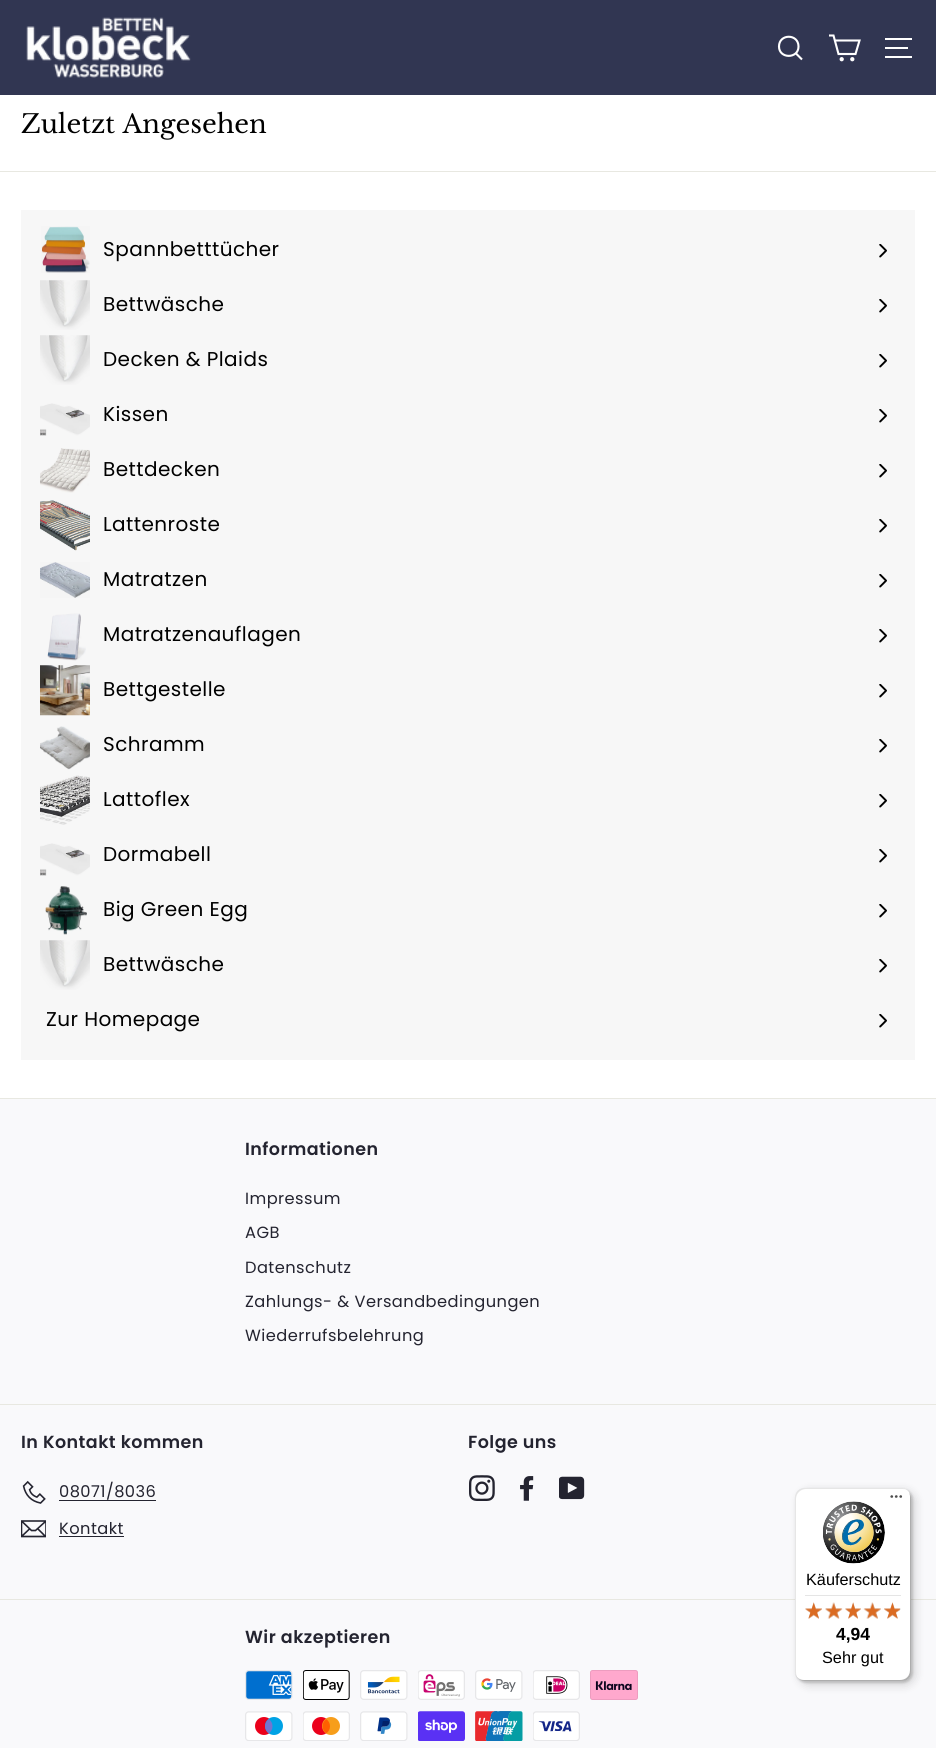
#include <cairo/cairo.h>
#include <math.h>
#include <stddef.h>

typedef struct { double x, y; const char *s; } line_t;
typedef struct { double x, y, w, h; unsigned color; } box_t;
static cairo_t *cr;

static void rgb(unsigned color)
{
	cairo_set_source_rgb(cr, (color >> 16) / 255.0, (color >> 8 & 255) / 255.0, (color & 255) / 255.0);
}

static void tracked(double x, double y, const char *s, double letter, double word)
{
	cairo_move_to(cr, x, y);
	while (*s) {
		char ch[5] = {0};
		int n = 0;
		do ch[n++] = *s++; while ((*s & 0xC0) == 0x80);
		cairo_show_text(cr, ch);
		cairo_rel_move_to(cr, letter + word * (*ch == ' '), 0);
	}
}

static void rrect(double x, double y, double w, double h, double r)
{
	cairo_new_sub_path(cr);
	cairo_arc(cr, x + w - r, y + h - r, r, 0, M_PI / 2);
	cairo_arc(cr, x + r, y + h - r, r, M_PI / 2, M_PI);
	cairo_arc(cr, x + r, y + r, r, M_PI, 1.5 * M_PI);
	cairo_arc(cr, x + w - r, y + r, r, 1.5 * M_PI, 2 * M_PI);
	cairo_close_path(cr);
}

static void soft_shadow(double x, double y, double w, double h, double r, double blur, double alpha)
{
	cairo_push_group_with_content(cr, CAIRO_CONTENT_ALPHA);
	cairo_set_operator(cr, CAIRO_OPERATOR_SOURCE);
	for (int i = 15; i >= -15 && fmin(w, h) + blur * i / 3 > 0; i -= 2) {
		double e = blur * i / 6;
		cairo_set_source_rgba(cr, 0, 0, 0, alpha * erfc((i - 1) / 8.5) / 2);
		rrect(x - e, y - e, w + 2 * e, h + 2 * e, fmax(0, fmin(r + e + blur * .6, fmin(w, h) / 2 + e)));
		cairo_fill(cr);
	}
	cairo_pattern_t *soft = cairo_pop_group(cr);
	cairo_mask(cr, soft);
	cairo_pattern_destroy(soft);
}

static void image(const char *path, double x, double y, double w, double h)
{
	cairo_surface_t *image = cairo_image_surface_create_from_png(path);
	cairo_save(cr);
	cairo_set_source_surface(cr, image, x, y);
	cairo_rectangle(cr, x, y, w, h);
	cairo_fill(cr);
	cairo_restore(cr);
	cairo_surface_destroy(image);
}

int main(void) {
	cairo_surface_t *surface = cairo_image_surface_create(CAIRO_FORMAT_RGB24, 936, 1748);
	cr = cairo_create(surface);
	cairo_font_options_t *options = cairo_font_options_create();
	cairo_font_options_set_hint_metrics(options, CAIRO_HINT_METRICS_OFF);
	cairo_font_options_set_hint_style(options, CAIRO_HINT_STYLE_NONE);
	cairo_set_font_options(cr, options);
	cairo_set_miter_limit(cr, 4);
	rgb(0xffffff);
	cairo_paint(cr);
	rgb(0xf7f7f7);
	cairo_rectangle(cr, 21, 210, 894, 850);
	cairo_fill(cr);
	rgb(0x313652);
	cairo_rectangle(cr, 0, 0, 936, 95);
	cairo_fill(cr);
	image("img/1.png", 26, 17, 165, 61);
	cairo_new_path(cr);
	cairo_move_to(cr, 798.5, 46.5);
	cairo_curve_to(cr, 798.5, 59, 779, 59, 779, 46.5);
	cairo_curve_to(cr, 779, 33.5, 798.5, 33.5, 798.5, 46.5);
	cairo_close_path(cr);
	cairo_move_to(cr, 802, 59.5);
	cairo_line_to(cr, 796, 53.5);
	rgb(0xffffff);
	cairo_set_line_width(cr, 2.1);
	cairo_stroke(cr);
	cairo_new_path(cr);
	cairo_move_to(cr, 835, 40.5);
	cairo_line_to(cr, 859.5, 40.5);
	cairo_line_to(cr, 855.5, 54);
	cairo_line_to(cr, 838.5, 54);
	cairo_line_to(cr, 833.5, 35.5);
	cairo_line_to(cr, 829, 35.5);
	cairo_stroke(cr);
	cairo_arc(cr, 841.7, 59.2, 1.1, 0, 2 * M_PI);
	cairo_stroke(cr);
	cairo_arc(cr, 852.3, 59.2, 1.1, 0, 2 * M_PI);
	cairo_stroke(cr);
	{
		static const box_t items[] = {
			{885, 38, 27, 2, 0xffffff},
			{885, 47, 23, 2, 0xffffff},
			{885, 56, 27, 2, 0xffffff},
			{0, 171, 936, 1, 0xe8e8e1},
		};
		for (size_t i = 0; i < sizeof items / sizeof *items; i++) {
			rgb(items[i].color);
			cairo_rectangle(cr, items[i].x, items[i].y, items[i].w, items[i].h);
			cairo_fill(cr);
		}
	}
	image("img/2.png", 41, 226, 49, 47);
	image("img/3.png", 879, 244, 8, 14);
	image("img/4.png", 40, 280, 50, 50);
	image("img/3.png", 879, 299, 8, 14);
	image("img/4.png", 40, 335, 50, 50);
	image("img/3.png", 879, 354, 8, 14);
	image("img/5.png", 40, 403, 50, 33);
	image("img/3.png", 879, 409, 8, 14);
	image("img/6.png", 40, 448, 50, 45);
	image("img/3.png", 879, 464, 8, 14);
	image("img/7.png", 40, 500, 50, 51);
	image("img/3.png", 879, 519, 8, 14);
	image("img/8.png", 40, 562, 50, 36);
	image("img/3.png", 879, 574, 8, 14);
	image("img/9.png", 47, 613, 39, 48);
	image("img/3.png", 879, 629, 8, 14);
	image("img/10.png", 40, 665, 50, 51);
	image("img/3.png", 879, 684, 8, 14);
	image("img/11.png", 40, 726, 50, 44);
	image("img/3.png", 879, 739, 8, 14);
	image("img/12.png", 40, 775, 50, 50);
	image("img/3.png", 879, 794, 8, 14);
	image("img/5.png", 40, 843, 50, 33);
	image("img/3.png", 879, 849, 8, 14);
	image("img/13.png", 45, 886, 42, 49);
	image("img/3.png", 879, 904, 8, 14);
	image("img/4.png", 40, 940, 50, 50);
	image("img/3.png", 879, 959, 8, 14);
	image("img/3.png", 879, 1014, 8, 14);
	{
		static const box_t items[] = {
			{0, 1099, 936, 649, 0xf9f9fb},
			{0, 1098, 936, 1, 0xe8e8e1},
			{0, 1404, 936, 1, 0xe8e8e1},
		};
		for (size_t i = 0; i < sizeof items / sizeof *items; i++) {
			rgb(items[i].color);
			cairo_rectangle(cr, items[i].x, items[i].y, items[i].w, items[i].h);
			cairo_fill(cr);
		}
	}
	image("img/14.png", 22, 1480, 24, 24);
	rgb(0x242430);
	cairo_rectangle(cr, 59, 1500, 97, 1);
	cairo_fill(cr);
	cairo_save(cr);
	cairo_rectangle(cr, 21, 1516, 25, 25);
	cairo_clip(cr);
	cairo_new_path(cr);
	cairo_move_to(cr, 46, 1536.5);
	cairo_line_to(cr, 21.5, 1536.5);
	cairo_line_to(cr, 21.5, 1521);
	cairo_line_to(cr, 46, 1521);
	cairo_close_path(cr);
	cairo_move_to(cr, 21.5, 1521);
	cairo_line_to(cr, 31.5, 1530.5);
	cairo_line_to(cr, 35.5, 1530.5);
	cairo_line_to(cr, 46, 1521);
	cairo_move_to(cr, 30, 1528.5);
	cairo_line_to(cr, 22, 1536);
	cairo_move_to(cr, 45.5, 1536.5);
	cairo_line_to(cr, 37.5, 1528.5);
	cairo_set_line_width(cr, 1.6);
	cairo_stroke(cr);
	cairo_restore(cr);
	cairo_rectangle(cr, 59, 1536, 65, 1);
	cairo_fill(cr);
	image("img/15.png", 469, 1475, 26, 26);
	image("img/16.png", 520, 1476, 14, 25);
	image("img/17.png", 559, 1476, 26, 24);
	rgb(0xe8e8e1);
	cairo_rectangle(cr, 0, 1599, 936, 1);
	cairo_fill(cr);
	image("img/18.png", 245, 1670, 48, 30);
	image("img/19.png", 303, 1670, 47, 30);
	image("img/20.png", 360, 1670, 48, 30);
	image("img/21.png", 418, 1670, 47, 30);
	image("img/22.png", 475, 1670, 48, 30);
	image("img/23.png", 533, 1670, 47, 30);
	image("img/24.png", 590, 1670, 48, 30);
	image("img/25.png", 245, 1711, 48, 30);
	image("img/26.png", 303, 1711, 47, 30);
	image("img/27.png", 360, 1711, 48, 30);
	image("img/28.png", 418, 1711, 47, 30);
	image("img/29.png", 475, 1711, 48, 30);
	image("img/30.png", 533, 1711, 47, 30);
	rgb(0x000000);
	soft_shadow(799, 1491, 116, 194, 10, 5, 0.15);
	soft_shadow(796, 1489, 117, 194, 10, 1, 0.15);
	rgb(0xffffff);
	rrect(795, 1488, 116, 193, 10);
	cairo_fill(cr);
	cairo_set_source_rgba(cr, 0, 0, 0, 0.1);
	cairo_new_path(cr);
	cairo_move_to(cr, 806, 1489);
	cairo_line_to(cr, 902, 1489);
	cairo_curve_to(cr, 904, 1489, 906, 1489, 907, 1490);
	cairo_curve_to(cr, 906, 1489, 903, 1488, 901, 1488);
	cairo_line_to(cr, 805, 1488);
	cairo_curve_to(cr, 799, 1488, 795, 1492, 795, 1498);
	cairo_line_to(cr, 795, 1671);
	cairo_curve_to(cr, 795, 1674, 796, 1677, 798, 1679);
	cairo_curve_to(cr, 797, 1677, 796, 1675, 796, 1672);
	cairo_line_to(cr, 796, 1499);
	cairo_curve_to(cr, 796, 1493, 801, 1489, 806, 1489);
	cairo_close_path(cr);
	cairo_fill(cr);
	cairo_set_source_rgba(cr, 0, 0, 0, 0.2);
	cairo_new_path(cr);
	cairo_move_to(cr, 799, 1679);
	cairo_curve_to(cr, 800, 1680, 803, 1681, 805, 1681);
	cairo_line_to(cr, 901, 1681);
	cairo_curve_to(cr, 907, 1681, 911, 1677, 911, 1671);
	cairo_line_to(cr, 911, 1498);
	cairo_curve_to(cr, 911, 1496, 910, 1494, 909, 1492);
	cairo_line_to(cr, 910, 1496);
	cairo_line_to(cr, 910, 1670);
	cairo_curve_to(cr, 910, 1676, 906, 1680, 900, 1680);
	cairo_line_to(cr, 804, 1680);
	cairo_curve_to(cr, 802, 1680, 800, 1680, 799, 1679);
	cairo_close_path(cr);
	cairo_fill(cr);
	cairo_set_source_rgba(cr, 0.196, 0.196, 0.196, 0.2);
	cairo_new_path(cr);
	cairo_move_to(cr, 797, 1677);
	cairo_curve_to(cr, 799, 1680, 802, 1681, 805, 1681);
	cairo_line_to(cr, 901, 1681);
	cairo_curve_to(cr, 907, 1681, 911, 1677, 911, 1671);
	cairo_line_to(cr, 911, 1498);
	cairo_curve_to(cr, 911, 1496, 910, 1493, 909, 1492);
	cairo_curve_to(cr, 910, 1493, 910, 1495, 910, 1497);
	cairo_line_to(cr, 910, 1670);
	cairo_curve_to(cr, 910, 1676, 906, 1680, 900, 1680);
	cairo_line_to(cr, 804, 1680);
	cairo_curve_to(cr, 802, 1680, 799, 1679, 797, 1677);
	cairo_close_path(cr);
	cairo_fill(cr);
	image("img/31.png", 890, 1495, 13, 3);
	cairo_set_source_rgba(cr, 1, 1, 1, 0.3);
	cairo_new_path(cr);
	cairo_move_to(cr, 901, 1681);
	cairo_curve_to(cr, 906.5, 1681, 911, 1676.5, 911, 1671);
	cairo_curve_to(cr, 911, 1676, 906, 1681, 901, 1681);
	cairo_close_path(cr);
	cairo_fill(cr);
	image("img/32.png", 823, 1501, 62, 63);
	rgb(0xe5e5e5);
	cairo_rectangle(cr, 805, 1595, 96, 1);
	cairo_fill(cr);
	image("img/33.png", 805, 1603, 17, 16);
	image("img/34.png", 825, 1602, 17, 17);
	image("img/35.png", 845, 1603, 16, 16);
	image("img/36.png", 864, 1602, 17, 17);
	image("img/37.png", 884, 1603, 17, 16);
	image("img/38.png", 805, 1602, 17, 17);
	image("img/39.png", 825, 1602, 18, 17);
	image("img/40.png", 845, 1602, 16, 17);
	image("img/41.png", 863, 1602, 18, 17);
	image("img/42.png", 884, 1602, 16, 17);
	cairo_select_font_face(cr, "Libre Baskerville", CAIRO_FONT_SLANT_NORMAL, CAIRO_FONT_WEIGHT_NORMAL);
	cairo_set_font_size(cr, 25.75);
	rgb(0x000000);
	cairo_move_to(cr, 21, 133);
	cairo_show_text(cr, "Zuletzt Angesehen");
	cairo_select_font_face(cr, "Poppins", CAIRO_FONT_SLANT_NORMAL, CAIRO_FONT_WEIGHT_NORMAL);
	cairo_set_font_size(cr, 20);
	{
		static const line_t items[] = {
			{103, 256, "Spannbetttücher"},
			{103, 311, "Bettwäsche"},
			{103, 366, "Decken & Plaids"},
			{103, 421, "Kissen"},
			{103, 476, "Bettdecken"},
			{103, 531, "Lattenroste"},
			{103, 586, "Matratzen"},
			{103, 641, "Matratzenauflagen"},
			{103, 696, "Bettgestelle"},
			{103, 751, "Schramm"},
			{103, 806, "Lattoflex"},
			{103, 861, "Dormabell"},
			{103, 916, "Big Green Egg"},
			{103, 971, "Bettwäsche"},
			{46, 1026, "Zur Homepage"},
		};
		for (size_t i = 0; i < sizeof items / sizeof *items; i++) {
			tracked(items[i].x, items[i].y, items[i].s, 0.45, 0);
		}
	}
	cairo_select_font_face(cr, "Poppins SemiBold", CAIRO_FONT_SLANT_NORMAL, CAIRO_FONT_WEIGHT_NORMAL);
	cairo_set_font_size(cr, 17.5);
	rgb(0x242430);
	tracked(245, 1155, "Informationen", 0.45, 0);
	cairo_select_font_face(cr, "Poppins", CAIRO_FONT_SLANT_NORMAL, CAIRO_FONT_WEIGHT_NORMAL);
	cairo_set_font_size(cr, 16.25);
	{
		static const line_t items[] = {
			{245, 1204, "Impressum"},
			{245, 1238, "AGB"},
			{245, 1273, "Datenschutz"},
			{245, 1307, "Zahlungs- & Versandbedingungen"},
			{245, 1341, "Wiederrufsbelehrung"},
		};
		for (size_t i = 0; i < sizeof items / sizeof *items; i++) {
			tracked(items[i].x, items[i].y, items[i].s, 0.45, 0);
		}
	}
	cairo_select_font_face(cr, "Poppins SemiBold", CAIRO_FONT_SLANT_NORMAL, CAIRO_FONT_WEIGHT_NORMAL);
	cairo_set_font_size(cr, 17.5);
	tracked(21, 1448, "In Kontakt kommen", 0.45, 0);
	cairo_select_font_face(cr, "Poppins", CAIRO_FONT_SLANT_NORMAL, CAIRO_FONT_WEIGHT_NORMAL);
	cairo_set_font_size(cr, 16.25);
	tracked(59, 1497, "08071/8036", 0.45, 0);
	tracked(59, 1534, "Kontakt", 0.45, 0);
	cairo_select_font_face(cr, "Poppins SemiBold", CAIRO_FONT_SLANT_NORMAL, CAIRO_FONT_WEIGHT_NORMAL);
	cairo_set_font_size(cr, 17.5);
	tracked(468, 1448, "Folge uns", 0.45, 0);
	tracked(245, 1643, "Wir akzeptieren", 0.45, 0);
	cairo_select_font_face(cr, "Liberation Sans", CAIRO_FONT_SLANT_NORMAL, CAIRO_FONT_WEIGHT_NORMAL);
	cairo_set_font_size(cr, 16.25);
	rgb(0x000000);
	cairo_move_to(cr, 806, 1585);
	cairo_show_text(cr, "Käuferschutz");
	cairo_select_font_face(cr, "Liberation Sans", CAIRO_FONT_SLANT_NORMAL, CAIRO_FONT_WEIGHT_BOLD);
	cairo_set_font_size(cr, 17.5);
	cairo_move_to(cr, 836, 1640);
	cairo_show_text(cr, "4,94");
	cairo_select_font_face(cr, "Liberation Sans", CAIRO_FONT_SLANT_NORMAL, CAIRO_FONT_WEIGHT_NORMAL);
	cairo_set_font_size(cr, 16.25);
	cairo_move_to(cr, 822, 1663);
	cairo_show_text(cr, "Sehr gut");
	cairo_surface_write_to_png(surface, "page.png");
	cairo_font_options_destroy(options);
	cairo_destroy(cr);
	cairo_surface_destroy(surface);
	return 0;
}
